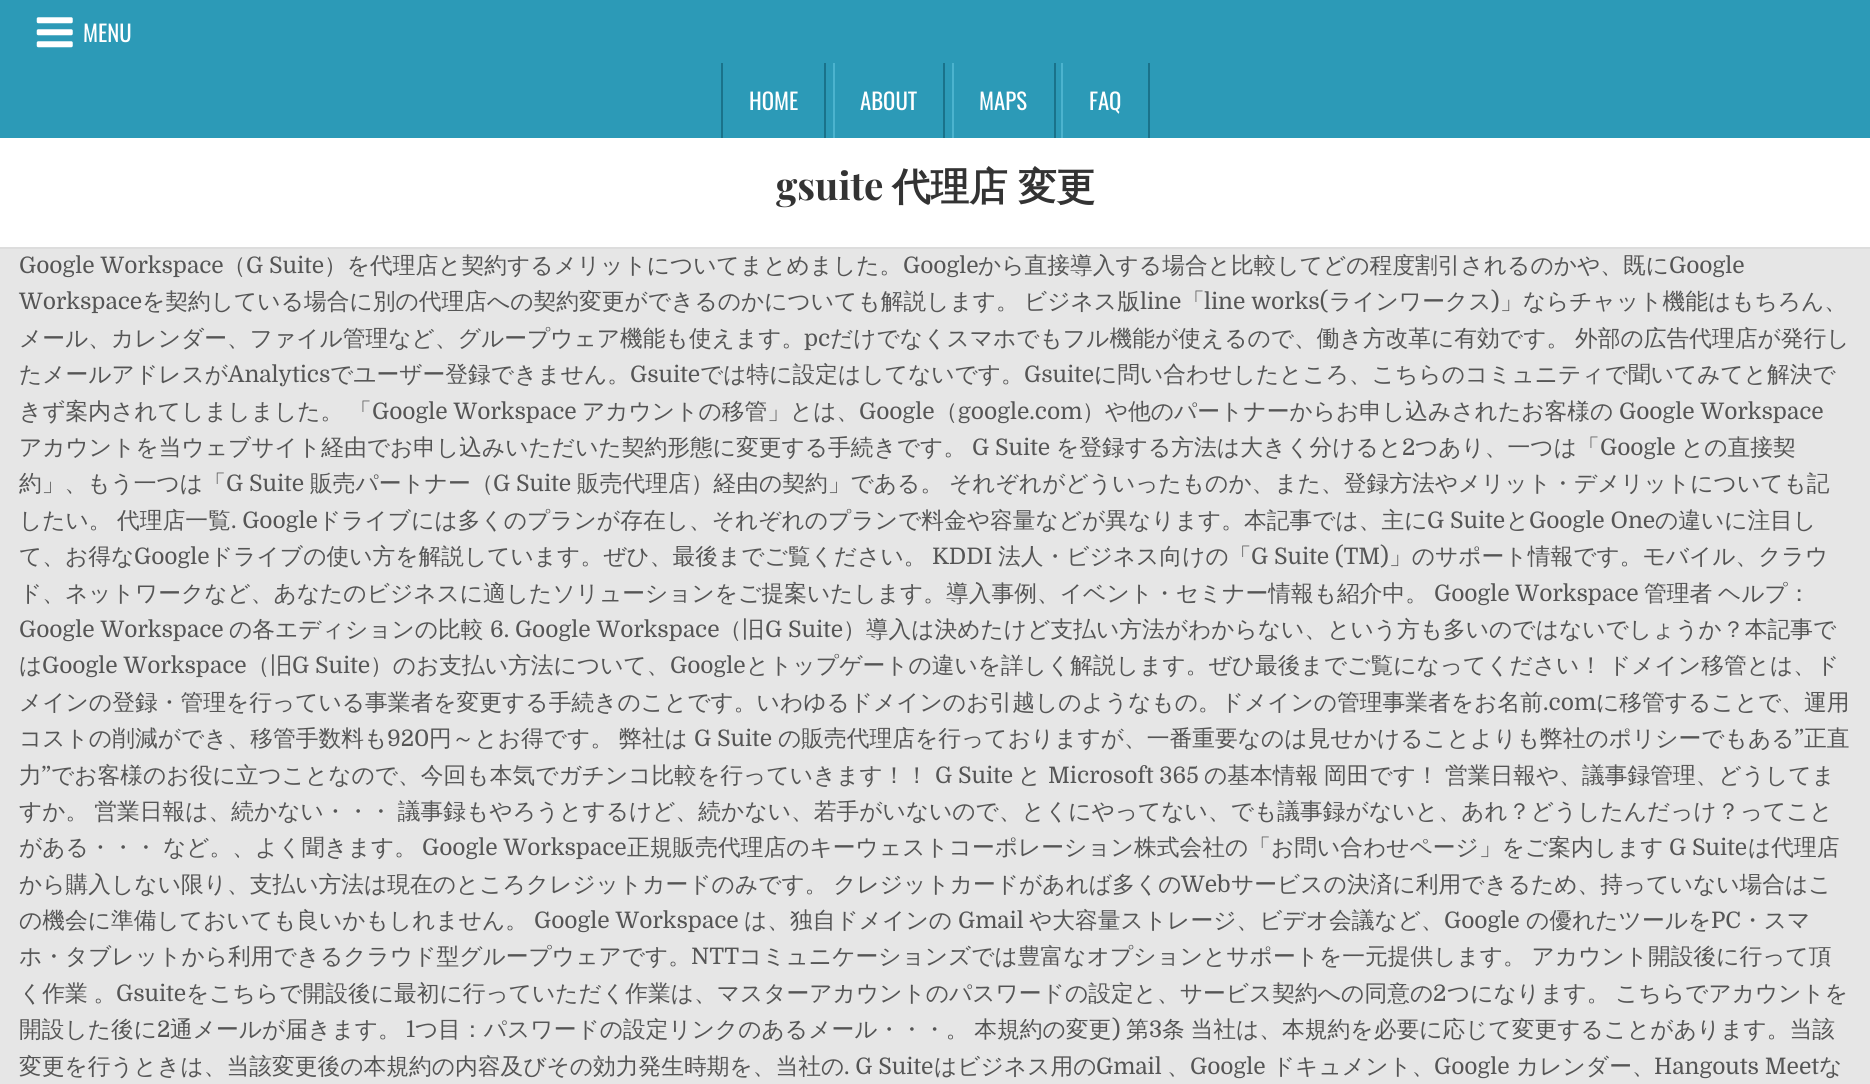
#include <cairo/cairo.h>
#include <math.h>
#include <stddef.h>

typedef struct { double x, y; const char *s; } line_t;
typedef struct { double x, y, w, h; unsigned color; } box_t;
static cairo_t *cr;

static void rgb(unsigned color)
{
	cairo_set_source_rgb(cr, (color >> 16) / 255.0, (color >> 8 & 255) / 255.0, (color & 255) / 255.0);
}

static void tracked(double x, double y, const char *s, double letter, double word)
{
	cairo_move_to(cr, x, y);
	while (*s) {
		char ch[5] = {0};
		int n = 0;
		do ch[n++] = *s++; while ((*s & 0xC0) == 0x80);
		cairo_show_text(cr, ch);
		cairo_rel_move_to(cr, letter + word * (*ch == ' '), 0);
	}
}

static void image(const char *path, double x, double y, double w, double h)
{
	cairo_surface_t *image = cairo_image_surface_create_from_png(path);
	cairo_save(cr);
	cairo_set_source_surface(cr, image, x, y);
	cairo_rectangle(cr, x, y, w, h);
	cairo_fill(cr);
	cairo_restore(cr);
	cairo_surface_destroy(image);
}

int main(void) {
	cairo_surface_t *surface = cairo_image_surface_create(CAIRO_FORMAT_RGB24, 1870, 1084);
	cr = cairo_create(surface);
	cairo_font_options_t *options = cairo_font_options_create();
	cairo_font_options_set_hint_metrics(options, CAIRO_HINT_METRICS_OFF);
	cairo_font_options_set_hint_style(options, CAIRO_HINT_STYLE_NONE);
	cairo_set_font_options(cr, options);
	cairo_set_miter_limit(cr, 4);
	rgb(0xe6e6e6);
	cairo_paint(cr);
	rgb(0x2c9ab7);
	cairo_rectangle(cr, 0, 0, 1870, 138);
	cairo_fill(cr);
	image("img/1.png", 36, 17, 37, 31);
	{
		static const box_t items[] = {
			{824, 63, 2, 75, 0x1a728a},
			{721, 63, 2, 75, 0x1a728a},
			{943, 63, 2, 75, 0x1a728a},
			{833, 63, 2, 75, 0x4cb3ce},
			{1054, 63, 2, 75, 0x1a728a},
			{952, 63, 2, 75, 0x4cb3ce},
			{1148, 63, 2, 75, 0x1a728a},
			{1061, 63, 2, 75, 0x4cb3ce},
			{0, 138, 1870, 109, 0xffffff},
			{0, 247, 1870, 2, 0xdddddd},
		};
		for (size_t i = 0; i < sizeof items / sizeof *items; i++) {
			rgb(items[i].color);
			cairo_rectangle(cr, items[i].x, items[i].y, items[i].w, items[i].h);
			cairo_fill(cr);
		}
	}
	cairo_select_font_face(cr, "Oswald", CAIRO_FONT_SLANT_NORMAL, CAIRO_FONT_WEIGHT_NORMAL);
	cairo_set_font_size(cr, 22.75);
	rgb(0xffffff);
	{
		static const line_t items[] = {
			{83, 42, "MENU"},
			{749, 110, "HOME"},
			{860, 110, "ABOUT"},
			{979, 110, "MAPS"},
			{1089, 110, "FAQ"},
		};
		for (size_t i = 0; i < sizeof items / sizeof *items; i++) {
			cairo_move_to(cr, items[i].x, items[i].y);
			cairo_show_text(cr, items[i].s);
		}
	}
	cairo_select_font_face(cr, "Playfair Display", CAIRO_FONT_SLANT_NORMAL, CAIRO_FONT_WEIGHT_BOLD);
	cairo_set_font_size(cr, 38.5);
	rgb(0x333333);
	cairo_move_to(cr, 776, 200);
	cairo_show_text(cr, "gsuite");
	cairo_select_font_face(cr, "WenQuanYi Zen Hei", CAIRO_FONT_SLANT_NORMAL, CAIRO_FONT_WEIGHT_BOLD);
	tracked(892, 200, "代理店 変更", 0, -1);
	cairo_select_font_face(cr, "Domine", CAIRO_FONT_SLANT_NORMAL, CAIRO_FONT_WEIGHT_NORMAL);
	cairo_set_font_size(cr, 22.75);
	rgb(0x555555);
	cairo_move_to(cr, 19, 273);
	cairo_show_text(cr, "Google Workspace");
	cairo_select_font_face(cr, "WenQuanYi Zen Hei Medium", CAIRO_FONT_SLANT_NORMAL, CAIRO_FONT_WEIGHT_NORMAL);
	cairo_move_to(cr, 223, 273);
	cairo_show_text(cr, "（");
	cairo_select_font_face(cr, "Domine", CAIRO_FONT_SLANT_NORMAL, CAIRO_FONT_WEIGHT_NORMAL);
	cairo_move_to(cr, 246, 273);
	cairo_show_text(cr, "G Suite");
	cairo_select_font_face(cr, "WenQuanYi Zen Hei Medium", CAIRO_FONT_SLANT_NORMAL, CAIRO_FONT_WEIGHT_NORMAL);
	cairo_move_to(cr, 324, 273);
	cairo_show_text(cr, "）を代理店と契約するメリットについてまとめました。");
	cairo_select_font_face(cr, "Domine", CAIRO_FONT_SLANT_NORMAL, CAIRO_FONT_WEIGHT_NORMAL);
	cairo_move_to(cr, 903, 273);
	cairo_show_text(cr, "Google");
	cairo_select_font_face(cr, "WenQuanYi Zen Hei Medium", CAIRO_FONT_SLANT_NORMAL, CAIRO_FONT_WEIGHT_NORMAL);
	cairo_move_to(cr, 978, 273);
	cairo_show_text(cr, "から直接導入する場合と比較してどの程度割引されるのかや、既に");
	cairo_select_font_face(cr, "Domine", CAIRO_FONT_SLANT_NORMAL, CAIRO_FONT_WEIGHT_NORMAL);
	cairo_move_to(cr, 1669, 273);
	cairo_show_text(cr, "Google");
	cairo_move_to(cr, 19, 309);
	cairo_show_text(cr, "Workspace");
	cairo_select_font_face(cr, "WenQuanYi Zen Hei Medium", CAIRO_FONT_SLANT_NORMAL, CAIRO_FONT_WEIGHT_NORMAL);
	cairo_move_to(cr, 142, 309);
	cairo_show_text(cr, "を契約している場合に別の代理店への契約変更ができるのかについても解説します。");
	cairo_move_to(cr, 1024, 309);
	cairo_show_text(cr, "ビジネス版");
	cairo_select_font_face(cr, "Domine", CAIRO_FONT_SLANT_NORMAL, CAIRO_FONT_WEIGHT_NORMAL);
	cairo_move_to(cr, 1140, 309);
	cairo_show_text(cr, "line");
	cairo_select_font_face(cr, "WenQuanYi Zen Hei Medium", CAIRO_FONT_SLANT_NORMAL, CAIRO_FONT_WEIGHT_NORMAL);
	cairo_move_to(cr, 1182, 309);
	cairo_show_text(cr, "「");
	cairo_select_font_face(cr, "Domine", CAIRO_FONT_SLANT_NORMAL, CAIRO_FONT_WEIGHT_NORMAL);
	cairo_move_to(cr, 1204, 309);
	cairo_show_text(cr, "line works(");
	cairo_select_font_face(cr, "WenQuanYi Zen Hei Medium", CAIRO_FONT_SLANT_NORMAL, CAIRO_FONT_WEIGHT_NORMAL);
	cairo_move_to(cr, 1329, 309);
	cairo_show_text(cr, "ラインワークス");
	cairo_select_font_face(cr, "Domine", CAIRO_FONT_SLANT_NORMAL, CAIRO_FONT_WEIGHT_NORMAL);
	cairo_move_to(cr, 1491, 309);
	cairo_show_text(cr, ")");
	cairo_select_font_face(cr, "WenQuanYi Zen Hei Medium", CAIRO_FONT_SLANT_NORMAL, CAIRO_FONT_WEIGHT_NORMAL);
	cairo_move_to(cr, 1500, 309);
	cairo_show_text(cr, "」ならチャット機能はもちろん、");
	cairo_move_to(cr, 19, 346);
	cairo_show_text(cr, "メール、カレンダー、ファイル管理など、グループウェア機能も使えます。");
	cairo_select_font_face(cr, "Domine", CAIRO_FONT_SLANT_NORMAL, CAIRO_FONT_WEIGHT_NORMAL);
	cairo_move_to(cr, 804, 346);
	cairo_show_text(cr, "pc");
	cairo_select_font_face(cr, "WenQuanYi Zen Hei Medium", CAIRO_FONT_SLANT_NORMAL, CAIRO_FONT_WEIGHT_NORMAL);
	tracked(830, 346, "だけでなくスマホでもフル機能が使えるので、働き方改革に有効です。 外部の広告代理店が発行し", 0, -1);
	cairo_move_to(cr, 19, 382);
	cairo_show_text(cr, "たメールアドレスが");
	cairo_select_font_face(cr, "Domine", CAIRO_FONT_SLANT_NORMAL, CAIRO_FONT_WEIGHT_NORMAL);
	cairo_move_to(cr, 228, 382);
	cairo_show_text(cr, "Analytics");
	cairo_select_font_face(cr, "WenQuanYi Zen Hei Medium", CAIRO_FONT_SLANT_NORMAL, CAIRO_FONT_WEIGHT_NORMAL);
	cairo_move_to(cr, 330, 382);
	cairo_show_text(cr, "でユーザー登録できません。");
	cairo_select_font_face(cr, "Domine", CAIRO_FONT_SLANT_NORMAL, CAIRO_FONT_WEIGHT_NORMAL);
	cairo_move_to(cr, 630, 382);
	cairo_show_text(cr, "Gsuite");
	cairo_select_font_face(cr, "WenQuanYi Zen Hei Medium", CAIRO_FONT_SLANT_NORMAL, CAIRO_FONT_WEIGHT_NORMAL);
	cairo_move_to(cr, 700, 382);
	cairo_show_text(cr, "では特に設定はしてないです。");
	cairo_select_font_face(cr, "Domine", CAIRO_FONT_SLANT_NORMAL, CAIRO_FONT_WEIGHT_NORMAL);
	cairo_move_to(cr, 1024, 382);
	cairo_show_text(cr, "Gsuite");
	cairo_select_font_face(cr, "WenQuanYi Zen Hei Medium", CAIRO_FONT_SLANT_NORMAL, CAIRO_FONT_WEIGHT_NORMAL);
	{
		static const line_t items[] = {
			{1094, 382, "に問い合わせしたところ、こちらのコミュニティで聞いてみてと解決で"},
			{19, 419, "きず案内されてしましました。"},
			{349, 419, "「"},
		};
		for (size_t i = 0; i < sizeof items / sizeof *items; i++) {
			cairo_move_to(cr, items[i].x, items[i].y);
			cairo_show_text(cr, items[i].s);
		}
	}
	cairo_select_font_face(cr, "Domine", CAIRO_FONT_SLANT_NORMAL, CAIRO_FONT_WEIGHT_NORMAL);
	cairo_move_to(cr, 372, 419);
	cairo_show_text(cr, "Google Workspace");
	cairo_select_font_face(cr, "WenQuanYi Zen Hei Medium", CAIRO_FONT_SLANT_NORMAL, CAIRO_FONT_WEIGHT_NORMAL);
	cairo_move_to(cr, 582, 419);
	cairo_show_text(cr, "アカウントの移管」とは、");
	cairo_select_font_face(cr, "Domine", CAIRO_FONT_SLANT_NORMAL, CAIRO_FONT_WEIGHT_NORMAL);
	cairo_move_to(cr, 859, 419);
	cairo_show_text(cr, "Google");
	cairo_select_font_face(cr, "WenQuanYi Zen Hei Medium", CAIRO_FONT_SLANT_NORMAL, CAIRO_FONT_WEIGHT_NORMAL);
	cairo_move_to(cr, 935, 419);
	cairo_show_text(cr, "（");
	cairo_select_font_face(cr, "Domine", CAIRO_FONT_SLANT_NORMAL, CAIRO_FONT_WEIGHT_NORMAL);
	cairo_move_to(cr, 958, 419);
	cairo_show_text(cr, "google.com");
	cairo_select_font_face(cr, "WenQuanYi Zen Hei Medium", CAIRO_FONT_SLANT_NORMAL, CAIRO_FONT_WEIGHT_NORMAL);
	cairo_move_to(cr, 1082, 419);
	cairo_show_text(cr, "）や他のパートナーからお申し込みされたお客様の");
	cairo_select_font_face(cr, "Domine", CAIRO_FONT_SLANT_NORMAL, CAIRO_FONT_WEIGHT_NORMAL);
	cairo_move_to(cr, 1619, 419);
	cairo_show_text(cr, "Google Workspace");
	cairo_select_font_face(cr, "WenQuanYi Zen Hei Medium", CAIRO_FONT_SLANT_NORMAL, CAIRO_FONT_WEIGHT_NORMAL);
	cairo_move_to(cr, 19, 455);
	cairo_show_text(cr, "アカウントを当ウェブサイト経由でお申し込みいただいた契約形態に変更する手続きです。");
	cairo_select_font_face(cr, "Domine", CAIRO_FONT_SLANT_NORMAL, CAIRO_FONT_WEIGHT_NORMAL);
	cairo_move_to(cr, 972, 455);
	cairo_show_text(cr, "G Suite");
	cairo_select_font_face(cr, "WenQuanYi Zen Hei Medium", CAIRO_FONT_SLANT_NORMAL, CAIRO_FONT_WEIGHT_NORMAL);
	cairo_move_to(cr, 1056, 455);
	cairo_show_text(cr, "を登録する方法は大きく分けると");
	cairo_select_font_face(cr, "Domine", CAIRO_FONT_SLANT_NORMAL, CAIRO_FONT_WEIGHT_NORMAL);
	cairo_move_to(cr, 1402, 455);
	cairo_show_text(cr, "2");
	cairo_select_font_face(cr, "WenQuanYi Zen Hei Medium", CAIRO_FONT_SLANT_NORMAL, CAIRO_FONT_WEIGHT_NORMAL);
	cairo_move_to(cr, 1415, 455);
	cairo_show_text(cr, "つあり、一つは「");
	cairo_select_font_face(cr, "Domine", CAIRO_FONT_SLANT_NORMAL, CAIRO_FONT_WEIGHT_NORMAL);
	cairo_move_to(cr, 1600, 455);
	cairo_show_text(cr, "Google");
	cairo_select_font_face(cr, "WenQuanYi Zen Hei Medium", CAIRO_FONT_SLANT_NORMAL, CAIRO_FONT_WEIGHT_NORMAL);
	cairo_move_to(cr, 1681, 455);
	cairo_show_text(cr, "との直接契");
	cairo_move_to(cr, 19, 491);
	cairo_show_text(cr, "約」、もう一つは「");
	cairo_select_font_face(cr, "Domine", CAIRO_FONT_SLANT_NORMAL, CAIRO_FONT_WEIGHT_NORMAL);
	cairo_move_to(cr, 226, 491);
	cairo_show_text(cr, "G Suite");
	cairo_select_font_face(cr, "WenQuanYi Zen Hei Medium", CAIRO_FONT_SLANT_NORMAL, CAIRO_FONT_WEIGHT_NORMAL);
	cairo_move_to(cr, 310, 491);
	cairo_show_text(cr, "販売パートナー（");
	cairo_select_font_face(cr, "Domine", CAIRO_FONT_SLANT_NORMAL, CAIRO_FONT_WEIGHT_NORMAL);
	cairo_move_to(cr, 493, 491);
	cairo_show_text(cr, "G Suite");
	cairo_select_font_face(cr, "WenQuanYi Zen Hei Medium", CAIRO_FONT_SLANT_NORMAL, CAIRO_FONT_WEIGHT_NORMAL);
	{
		static const line_t items[] = {
			{577, 491, "販売代理店）経由の契約」である。"},
			{949, 491, "それぞれがどういったものか、また、登録方法やメリット・デメリットについても記"},
			{19, 528, "したい。"},
			{117, 528, "代理店一覧"},
		};
		for (size_t i = 0; i < sizeof items / sizeof *items; i++) {
			cairo_move_to(cr, items[i].x, items[i].y);
			cairo_show_text(cr, items[i].s);
		}
	}
	cairo_select_font_face(cr, "Domine", CAIRO_FONT_SLANT_NORMAL, CAIRO_FONT_WEIGHT_NORMAL);
	cairo_move_to(cr, 231, 528);
	cairo_show_text(cr, ". Google");
	cairo_select_font_face(cr, "WenQuanYi Zen Hei Medium", CAIRO_FONT_SLANT_NORMAL, CAIRO_FONT_WEIGHT_NORMAL);
	cairo_move_to(cr, 318, 528);
	cairo_show_text(cr, "ドライブには多くのプランが存在し、それぞれのプランで料金や容量などが異なります。本記事では、主に");
	cairo_select_font_face(cr, "Domine", CAIRO_FONT_SLANT_NORMAL, CAIRO_FONT_WEIGHT_NORMAL);
	cairo_move_to(cr, 1427, 528);
	cairo_show_text(cr, "G Suite");
	cairo_select_font_face(cr, "WenQuanYi Zen Hei Medium", CAIRO_FONT_SLANT_NORMAL, CAIRO_FONT_WEIGHT_NORMAL);
	cairo_move_to(cr, 1506, 528);
	cairo_show_text(cr, "と");
	cairo_select_font_face(cr, "Domine", CAIRO_FONT_SLANT_NORMAL, CAIRO_FONT_WEIGHT_NORMAL);
	cairo_move_to(cr, 1529, 528);
	cairo_show_text(cr, "Google One");
	cairo_select_font_face(cr, "WenQuanYi Zen Hei Medium", CAIRO_FONT_SLANT_NORMAL, CAIRO_FONT_WEIGHT_NORMAL);
	cairo_move_to(cr, 1655, 528);
	cairo_show_text(cr, "の違いに注目し");
	cairo_move_to(cr, 19, 564);
	cairo_show_text(cr, "て、お得な");
	cairo_select_font_face(cr, "Domine", CAIRO_FONT_SLANT_NORMAL, CAIRO_FONT_WEIGHT_NORMAL);
	cairo_move_to(cr, 134, 564);
	cairo_show_text(cr, "Google");
	cairo_select_font_face(cr, "WenQuanYi Zen Hei Medium", CAIRO_FONT_SLANT_NORMAL, CAIRO_FONT_WEIGHT_NORMAL);
	cairo_move_to(cr, 210, 564);
	cairo_show_text(cr, "ドライブの使い方を解説しています。ぜひ、最後までご覧ください。");
	cairo_select_font_face(cr, "Domine", CAIRO_FONT_SLANT_NORMAL, CAIRO_FONT_WEIGHT_NORMAL);
	cairo_move_to(cr, 932, 564);
	cairo_show_text(cr, "KDDI");
	cairo_select_font_face(cr, "WenQuanYi Zen Hei Medium", CAIRO_FONT_SLANT_NORMAL, CAIRO_FONT_WEIGHT_NORMAL);
	cairo_move_to(cr, 998, 564);
	cairo_show_text(cr, "法人・ビジネス向けの「");
	cairo_select_font_face(cr, "Domine", CAIRO_FONT_SLANT_NORMAL, CAIRO_FONT_WEIGHT_NORMAL);
	cairo_move_to(cr, 1251, 564);
	cairo_show_text(cr, "G Suite (TM)");
	cairo_select_font_face(cr, "WenQuanYi Zen Hei Medium", CAIRO_FONT_SLANT_NORMAL, CAIRO_FONT_WEIGHT_NORMAL);
	cairo_move_to(cr, 1389, 564);
	cairo_show_text(cr, "」のサポート情報です。モバイル、クラウ");
	cairo_move_to(cr, 19, 601);
	cairo_show_text(cr, "ド、ネットワークなど、あなたのビジネスに適したソリューションをご提案いたします。導入事例、イベント・セミナー情報も紹介中。");
	cairo_select_font_face(cr, "Domine", CAIRO_FONT_SLANT_NORMAL, CAIRO_FONT_WEIGHT_NORMAL);
	cairo_move_to(cr, 1434, 601);
	cairo_show_text(cr, "Google Workspace");
	cairo_select_font_face(cr, "WenQuanYi Zen Hei Medium", CAIRO_FONT_SLANT_NORMAL, CAIRO_FONT_WEIGHT_NORMAL);
	cairo_move_to(cr, 1644, 601);
	cairo_show_text(cr, "管理者");
	cairo_move_to(cr, 1718, 601);
	cairo_show_text(cr, "ヘルプ：");
	cairo_select_font_face(cr, "Domine", CAIRO_FONT_SLANT_NORMAL, CAIRO_FONT_WEIGHT_NORMAL);
	cairo_move_to(cr, 19, 637);
	cairo_show_text(cr, "Google Workspace");
	cairo_select_font_face(cr, "WenQuanYi Zen Hei Medium", CAIRO_FONT_SLANT_NORMAL, CAIRO_FONT_WEIGHT_NORMAL);
	cairo_move_to(cr, 229, 637);
	cairo_show_text(cr, "の各エディションの比較");
	cairo_select_font_face(cr, "Domine", CAIRO_FONT_SLANT_NORMAL, CAIRO_FONT_WEIGHT_NORMAL);
	cairo_move_to(cr, 490, 637);
	cairo_show_text(cr, "6. Google Workspace");
	cairo_select_font_face(cr, "WenQuanYi Zen Hei Medium", CAIRO_FONT_SLANT_NORMAL, CAIRO_FONT_WEIGHT_NORMAL);
	cairo_move_to(cr, 719, 637);
	cairo_show_text(cr, "（旧");
	cairo_select_font_face(cr, "Domine", CAIRO_FONT_SLANT_NORMAL, CAIRO_FONT_WEIGHT_NORMAL);
	cairo_move_to(cr, 765, 637);
	cairo_show_text(cr, "G Suite");
	cairo_select_font_face(cr, "WenQuanYi Zen Hei Medium", CAIRO_FONT_SLANT_NORMAL, CAIRO_FONT_WEIGHT_NORMAL);
	cairo_move_to(cr, 843, 637);
	cairo_show_text(cr, "）導入は決めたけど支払い方法がわからない、という方も多いのではないでしょうか？本記事で");
	cairo_move_to(cr, 19, 673);
	cairo_show_text(cr, "は");
	cairo_select_font_face(cr, "Domine", CAIRO_FONT_SLANT_NORMAL, CAIRO_FONT_WEIGHT_NORMAL);
	cairo_move_to(cr, 42, 673);
	cairo_show_text(cr, "Google Workspace");
	cairo_select_font_face(cr, "WenQuanYi Zen Hei Medium", CAIRO_FONT_SLANT_NORMAL, CAIRO_FONT_WEIGHT_NORMAL);
	cairo_move_to(cr, 247, 673);
	cairo_show_text(cr, "（旧");
	cairo_select_font_face(cr, "Domine", CAIRO_FONT_SLANT_NORMAL, CAIRO_FONT_WEIGHT_NORMAL);
	cairo_move_to(cr, 292, 673);
	cairo_show_text(cr, "G Suite");
	cairo_select_font_face(cr, "WenQuanYi Zen Hei Medium", CAIRO_FONT_SLANT_NORMAL, CAIRO_FONT_WEIGHT_NORMAL);
	cairo_move_to(cr, 370, 673);
	cairo_show_text(cr, "）のお支払い方法について、");
	cairo_select_font_face(cr, "Domine", CAIRO_FONT_SLANT_NORMAL, CAIRO_FONT_WEIGHT_NORMAL);
	cairo_move_to(cr, 670, 673);
	cairo_show_text(cr, "Google");
	cairo_select_font_face(cr, "WenQuanYi Zen Hei Medium", CAIRO_FONT_SLANT_NORMAL, CAIRO_FONT_WEIGHT_NORMAL);
	{
		static const line_t items[] = {
			{746, 673, "とトップゲートの違いを詳しく解説します。ぜひ最後までご覧になってください！"},
			{1608, 673, "ドメイン移管とは、ド"},
			{19, 710, "メインの登録・管理を行っている事業者を変更する手続きのことです。いわゆるドメインのお引越しのようなもの。ドメインの管理事業者をお名前"},
		};
		for (size_t i = 0; i < sizeof items / sizeof *items; i++) {
			cairo_move_to(cr, items[i].x, items[i].y);
			cairo_show_text(cr, items[i].s);
		}
	}
	cairo_select_font_face(cr, "Domine", CAIRO_FONT_SLANT_NORMAL, CAIRO_FONT_WEIGHT_NORMAL);
	cairo_move_to(cr, 1543, 710);
	cairo_show_text(cr, ".com");
	cairo_select_font_face(cr, "WenQuanYi Zen Hei Medium", CAIRO_FONT_SLANT_NORMAL, CAIRO_FONT_WEIGHT_NORMAL);
	cairo_move_to(cr, 1596, 710);
	cairo_show_text(cr, "に移管することで、運用");
	cairo_move_to(cr, 19, 746);
	cairo_show_text(cr, "コストの削減ができ、移管手数料も");
	cairo_select_font_face(cr, "Domine", CAIRO_FONT_SLANT_NORMAL, CAIRO_FONT_WEIGHT_NORMAL);
	cairo_move_to(cr, 387, 746);
	cairo_show_text(cr, "920");
	cairo_select_font_face(cr, "WenQuanYi Zen Hei Medium", CAIRO_FONT_SLANT_NORMAL, CAIRO_FONT_WEIGHT_NORMAL);
	cairo_move_to(cr, 429, 746);
	cairo_show_text(cr, "円～とお得です。");
	cairo_move_to(cr, 619, 746);
	cairo_show_text(cr, "弊社は");
	cairo_select_font_face(cr, "Domine", CAIRO_FONT_SLANT_NORMAL, CAIRO_FONT_WEIGHT_NORMAL);
	cairo_move_to(cr, 694, 746);
	cairo_show_text(cr, "G Suite");
	cairo_select_font_face(cr, "WenQuanYi Zen Hei Medium", CAIRO_FONT_SLANT_NORMAL, CAIRO_FONT_WEIGHT_NORMAL);
	cairo_move_to(cr, 778, 746);
	cairo_show_text(cr, "の販売代理店を行っておりますが、一番重要なのは見せかけることよりも弊社のポリシーでもある");
	cairo_select_font_face(cr, "Domine", CAIRO_FONT_SLANT_NORMAL, CAIRO_FONT_WEIGHT_NORMAL);
	cairo_move_to(cr, 1794, 746);
	cairo_show_text(cr, "”");
	cairo_select_font_face(cr, "WenQuanYi Zen Hei Medium", CAIRO_FONT_SLANT_NORMAL, CAIRO_FONT_WEIGHT_NORMAL);
	cairo_move_to(cr, 1804, 746);
	cairo_show_text(cr, "正直");
	cairo_move_to(cr, 19, 783);
	cairo_show_text(cr, "力");
	cairo_select_font_face(cr, "Domine", CAIRO_FONT_SLANT_NORMAL, CAIRO_FONT_WEIGHT_NORMAL);
	cairo_move_to(cr, 41, 783);
	cairo_show_text(cr, "”");
	cairo_select_font_face(cr, "WenQuanYi Zen Hei Medium", CAIRO_FONT_SLANT_NORMAL, CAIRO_FONT_WEIGHT_NORMAL);
	cairo_move_to(cr, 51, 783);
	cairo_show_text(cr, "でお客様のお役に立つことなので、今回も本気でガチンコ比較を行っていきます！！");
	cairo_select_font_face(cr, "Domine", CAIRO_FONT_SLANT_NORMAL, CAIRO_FONT_WEIGHT_NORMAL);
	cairo_move_to(cr, 935, 783);
	cairo_show_text(cr, "G Suite");
	cairo_select_font_face(cr, "WenQuanYi Zen Hei Medium", CAIRO_FONT_SLANT_NORMAL, CAIRO_FONT_WEIGHT_NORMAL);
	cairo_move_to(cr, 1018, 783);
	cairo_show_text(cr, "と");
	cairo_select_font_face(cr, "Domine", CAIRO_FONT_SLANT_NORMAL, CAIRO_FONT_WEIGHT_NORMAL);
	cairo_move_to(cr, 1048, 783);
	cairo_show_text(cr, "Microsoft 365");
	cairo_select_font_face(cr, "WenQuanYi Zen Hei Medium", CAIRO_FONT_SLANT_NORMAL, CAIRO_FONT_WEIGHT_NORMAL);
	{
		static const line_t items[] = {
			{1204, 783, "の基本情報"},
			{1324, 783, "岡田です！"},
			{1445, 783, "営業日報や、議事録管理、どうしてま"},
		};
		for (size_t i = 0; i < sizeof items / sizeof *items; i++) {
			cairo_move_to(cr, items[i].x, items[i].y);
			cairo_show_text(cr, items[i].s);
		}
	}
	tracked(19, 819, "すか。 営業日報は、続かない・・・ 議事録もやろうとするけど、続かない、若手がいないので、とくにやってない、でも議事録がないと、あれ？どうしたんだっけ？ってこと", 0, -1);
	cairo_move_to(cr, 19, 855);
	cairo_show_text(cr, "がある・・・");
	cairo_move_to(cr, 163, 855);
	cairo_show_text(cr, "など。、よく聞きます。");
	cairo_select_font_face(cr, "Domine", CAIRO_FONT_SLANT_NORMAL, CAIRO_FONT_WEIGHT_NORMAL);
	cairo_move_to(cr, 422, 855);
	cairo_show_text(cr, "Google Workspace");
	cairo_select_font_face(cr, "WenQuanYi Zen Hei Medium", CAIRO_FONT_SLANT_NORMAL, CAIRO_FONT_WEIGHT_NORMAL);
	cairo_move_to(cr, 627, 855);
	cairo_show_text(cr, "正規販売代理店のキーウェストコーポレーション株式会社の「お問い合わせページ」をご案内します");
	cairo_select_font_face(cr, "Domine", CAIRO_FONT_SLANT_NORMAL, CAIRO_FONT_WEIGHT_NORMAL);
	cairo_move_to(cr, 1669, 855);
	cairo_show_text(cr, "G Suite");
	cairo_select_font_face(cr, "WenQuanYi Zen Hei Medium", CAIRO_FONT_SLANT_NORMAL, CAIRO_FONT_WEIGHT_NORMAL);
	cairo_move_to(cr, 1748, 855);
	cairo_show_text(cr, "は代理店");
	tracked(19, 892, "から購入しない限り、支払い方法は現在のところクレジットカードのみです。 クレジットカードがあれば多くの", 0, -1);
	cairo_select_font_face(cr, "Domine", CAIRO_FONT_SLANT_NORMAL, CAIRO_FONT_WEIGHT_NORMAL);
	cairo_move_to(cr, 1181, 892);
	cairo_show_text(cr, "Web");
	cairo_select_font_face(cr, "WenQuanYi Zen Hei Medium", CAIRO_FONT_SLANT_NORMAL, CAIRO_FONT_WEIGHT_NORMAL);
	cairo_move_to(cr, 1231, 892);
	cairo_show_text(cr, "サービスの決済に利用できるため、持っていない場合はこ");
	cairo_move_to(cr, 19, 928);
	cairo_show_text(cr, "の機会に準備しておいても良いかもしれません。");
	cairo_select_font_face(cr, "Domine", CAIRO_FONT_SLANT_NORMAL, CAIRO_FONT_WEIGHT_NORMAL);
	cairo_move_to(cr, 534, 928);
	cairo_show_text(cr, "Google Workspace");
	cairo_select_font_face(cr, "WenQuanYi Zen Hei Medium", CAIRO_FONT_SLANT_NORMAL, CAIRO_FONT_WEIGHT_NORMAL);
	cairo_move_to(cr, 744, 928);
	cairo_show_text(cr, "は、独自ドメインの");
	cairo_select_font_face(cr, "Domine", CAIRO_FONT_SLANT_NORMAL, CAIRO_FONT_WEIGHT_NORMAL);
	cairo_move_to(cr, 958, 928);
	cairo_show_text(cr, "Gmail");
	cairo_select_font_face(cr, "WenQuanYi Zen Hei Medium", CAIRO_FONT_SLANT_NORMAL, CAIRO_FONT_WEIGHT_NORMAL);
	cairo_move_to(cr, 1029, 928);
	cairo_show_text(cr, "や大容量ストレージ、ビデオ会議など、");
	cairo_select_font_face(cr, "Domine", CAIRO_FONT_SLANT_NORMAL, CAIRO_FONT_WEIGHT_NORMAL);
	cairo_move_to(cr, 1444, 928);
	cairo_show_text(cr, "Google");
	cairo_select_font_face(cr, "WenQuanYi Zen Hei Medium", CAIRO_FONT_SLANT_NORMAL, CAIRO_FONT_WEIGHT_NORMAL);
	cairo_move_to(cr, 1526, 928);
	cairo_show_text(cr, "の優れたツールを");
	cairo_select_font_face(cr, "Domine", CAIRO_FONT_SLANT_NORMAL, CAIRO_FONT_WEIGHT_NORMAL);
	cairo_move_to(cr, 1711, 928);
	cairo_show_text(cr, "PC");
	cairo_select_font_face(cr, "WenQuanYi Zen Hei Medium", CAIRO_FONT_SLANT_NORMAL, CAIRO_FONT_WEIGHT_NORMAL);
	cairo_move_to(cr, 1741, 928);
	cairo_show_text(cr, "・スマ");
	cairo_move_to(cr, 19, 964);
	cairo_show_text(cr, "ホ・タブレットから利用できるクラウド型グループウェアです。");
	cairo_select_font_face(cr, "Domine", CAIRO_FONT_SLANT_NORMAL, CAIRO_FONT_WEIGHT_NORMAL);
	cairo_move_to(cr, 691, 964);
	cairo_show_text(cr, "NTT");
	cairo_select_font_face(cr, "WenQuanYi Zen Hei Medium", CAIRO_FONT_SLANT_NORMAL, CAIRO_FONT_WEIGHT_NORMAL);
	tracked(739, 964, "コミュニケーションズでは豊富なオプションとサポートを一元提供します。 アカウント開設後に行って頂", 0, -1);
	tracked(19, 1001, "く作業 。", 0, -1);
	cairo_select_font_face(cr, "Domine", CAIRO_FONT_SLANT_NORMAL, CAIRO_FONT_WEIGHT_NORMAL);
	cairo_move_to(cr, 116, 1001);
	cairo_show_text(cr, "Gsuite");
	cairo_select_font_face(cr, "WenQuanYi Zen Hei Medium", CAIRO_FONT_SLANT_NORMAL, CAIRO_FONT_WEIGHT_NORMAL);
	cairo_move_to(cr, 186, 1001);
	cairo_show_text(cr, "をこちらで開設後に最初に行っていただく作業は、マスターアカウントのパスワードの設定と、サービス契約への同意の");
	cairo_select_font_face(cr, "Domine", CAIRO_FONT_SLANT_NORMAL, CAIRO_FONT_WEIGHT_NORMAL);
	cairo_move_to(cr, 1433, 1001);
	cairo_show_text(cr, "2");
	cairo_select_font_face(cr, "WenQuanYi Zen Hei Medium", CAIRO_FONT_SLANT_NORMAL, CAIRO_FONT_WEIGHT_NORMAL);
	tracked(1447, 1001, "つになります。 こちらでアカウントを", 0, -1);
	cairo_move_to(cr, 19, 1037);
	cairo_show_text(cr, "開設した後に");
	cairo_select_font_face(cr, "Domine", CAIRO_FONT_SLANT_NORMAL, CAIRO_FONT_WEIGHT_NORMAL);
	cairo_move_to(cr, 157, 1037);
	cairo_show_text(cr, "2");
	cairo_select_font_face(cr, "WenQuanYi Zen Hei Medium", CAIRO_FONT_SLANT_NORMAL, CAIRO_FONT_WEIGHT_NORMAL);
	cairo_move_to(cr, 170, 1037);
	cairo_show_text(cr, "通メールが届きます。");
	cairo_select_font_face(cr, "Domine", CAIRO_FONT_SLANT_NORMAL, CAIRO_FONT_WEIGHT_NORMAL);
	cairo_move_to(cr, 406, 1037);
	cairo_show_text(cr, "1");
	cairo_select_font_face(cr, "WenQuanYi Zen Hei Medium", CAIRO_FONT_SLANT_NORMAL, CAIRO_FONT_WEIGHT_NORMAL);
	tracked(415, 1037, "つ目：パスワードの設定リンクのあるメール・・・。 本規約の変更", 0, -1);
	cairo_select_font_face(cr, "Domine", CAIRO_FONT_SLANT_NORMAL, CAIRO_FONT_WEIGHT_NORMAL);
	cairo_move_to(cr, 1112, 1037);
	cairo_show_text(cr, ")");
	cairo_select_font_face(cr, "WenQuanYi Zen Hei Medium", CAIRO_FONT_SLANT_NORMAL, CAIRO_FONT_WEIGHT_NORMAL);
	cairo_move_to(cr, 1126, 1037);
	cairo_show_text(cr, "第");
	cairo_select_font_face(cr, "Domine", CAIRO_FONT_SLANT_NORMAL, CAIRO_FONT_WEIGHT_NORMAL);
	cairo_move_to(cr, 1149, 1037);
	cairo_show_text(cr, "3");
	cairo_select_font_face(cr, "WenQuanYi Zen Hei Medium", CAIRO_FONT_SLANT_NORMAL, CAIRO_FONT_WEIGHT_NORMAL);
	tracked(1162, 1037, "条 当社は、本規約を必要に応じて変更することがあります。当該", 0, -1);
	cairo_move_to(cr, 19, 1074);
	cairo_show_text(cr, "変更を行うときは、当該変更後の本規約の内容及びその効力発生時期を、当社の");
	cairo_select_font_face(cr, "Domine", CAIRO_FONT_SLANT_NORMAL, CAIRO_FONT_WEIGHT_NORMAL);
	cairo_move_to(cr, 844, 1074);
	cairo_show_text(cr, ". G Suite");
	cairo_select_font_face(cr, "WenQuanYi Zen Hei Medium", CAIRO_FONT_SLANT_NORMAL, CAIRO_FONT_WEIGHT_NORMAL);
	cairo_move_to(cr, 934, 1074);
	cairo_show_text(cr, "はビジネス用の");
	cairo_select_font_face(cr, "Domine", CAIRO_FONT_SLANT_NORMAL, CAIRO_FONT_WEIGHT_NORMAL);
	cairo_move_to(cr, 1096, 1074);
	cairo_show_text(cr, "Gmail");
	cairo_select_font_face(cr, "WenQuanYi Zen Hei Medium", CAIRO_FONT_SLANT_NORMAL, CAIRO_FONT_WEIGHT_NORMAL);
	cairo_move_to(cr, 1167, 1074);
	cairo_show_text(cr, "、");
	cairo_select_font_face(cr, "Domine", CAIRO_FONT_SLANT_NORMAL, CAIRO_FONT_WEIGHT_NORMAL);
	cairo_move_to(cr, 1190, 1074);
	cairo_show_text(cr, "Google");
	cairo_select_font_face(cr, "WenQuanYi Zen Hei Medium", CAIRO_FONT_SLANT_NORMAL, CAIRO_FONT_WEIGHT_NORMAL);
	cairo_move_to(cr, 1272, 1074);
	cairo_show_text(cr, "ドキュメント、");
	cairo_select_font_face(cr, "Domine", CAIRO_FONT_SLANT_NORMAL, CAIRO_FONT_WEIGHT_NORMAL);
	cairo_move_to(cr, 1434, 1074);
	cairo_show_text(cr, "Google");
	cairo_select_font_face(cr, "WenQuanYi Zen Hei Medium", CAIRO_FONT_SLANT_NORMAL, CAIRO_FONT_WEIGHT_NORMAL);
	cairo_move_to(cr, 1516, 1074);
	cairo_show_text(cr, "カレンダー、");
	cairo_select_font_face(cr, "Domine", CAIRO_FONT_SLANT_NORMAL, CAIRO_FONT_WEIGHT_NORMAL);
	cairo_move_to(cr, 1654, 1074);
	cairo_show_text(cr, "Hangouts Meet");
	cairo_select_font_face(cr, "WenQuanYi Zen Hei Medium", CAIRO_FONT_SLANT_NORMAL, CAIRO_FONT_WEIGHT_NORMAL);
	cairo_move_to(cr, 1819, 1074);
	cairo_show_text(cr, "な");
	cairo_surface_write_to_png(surface, "page.png");
	cairo_font_options_destroy(options);
	cairo_destroy(cr);
	cairo_surface_destroy(surface);
	return 0;
}
